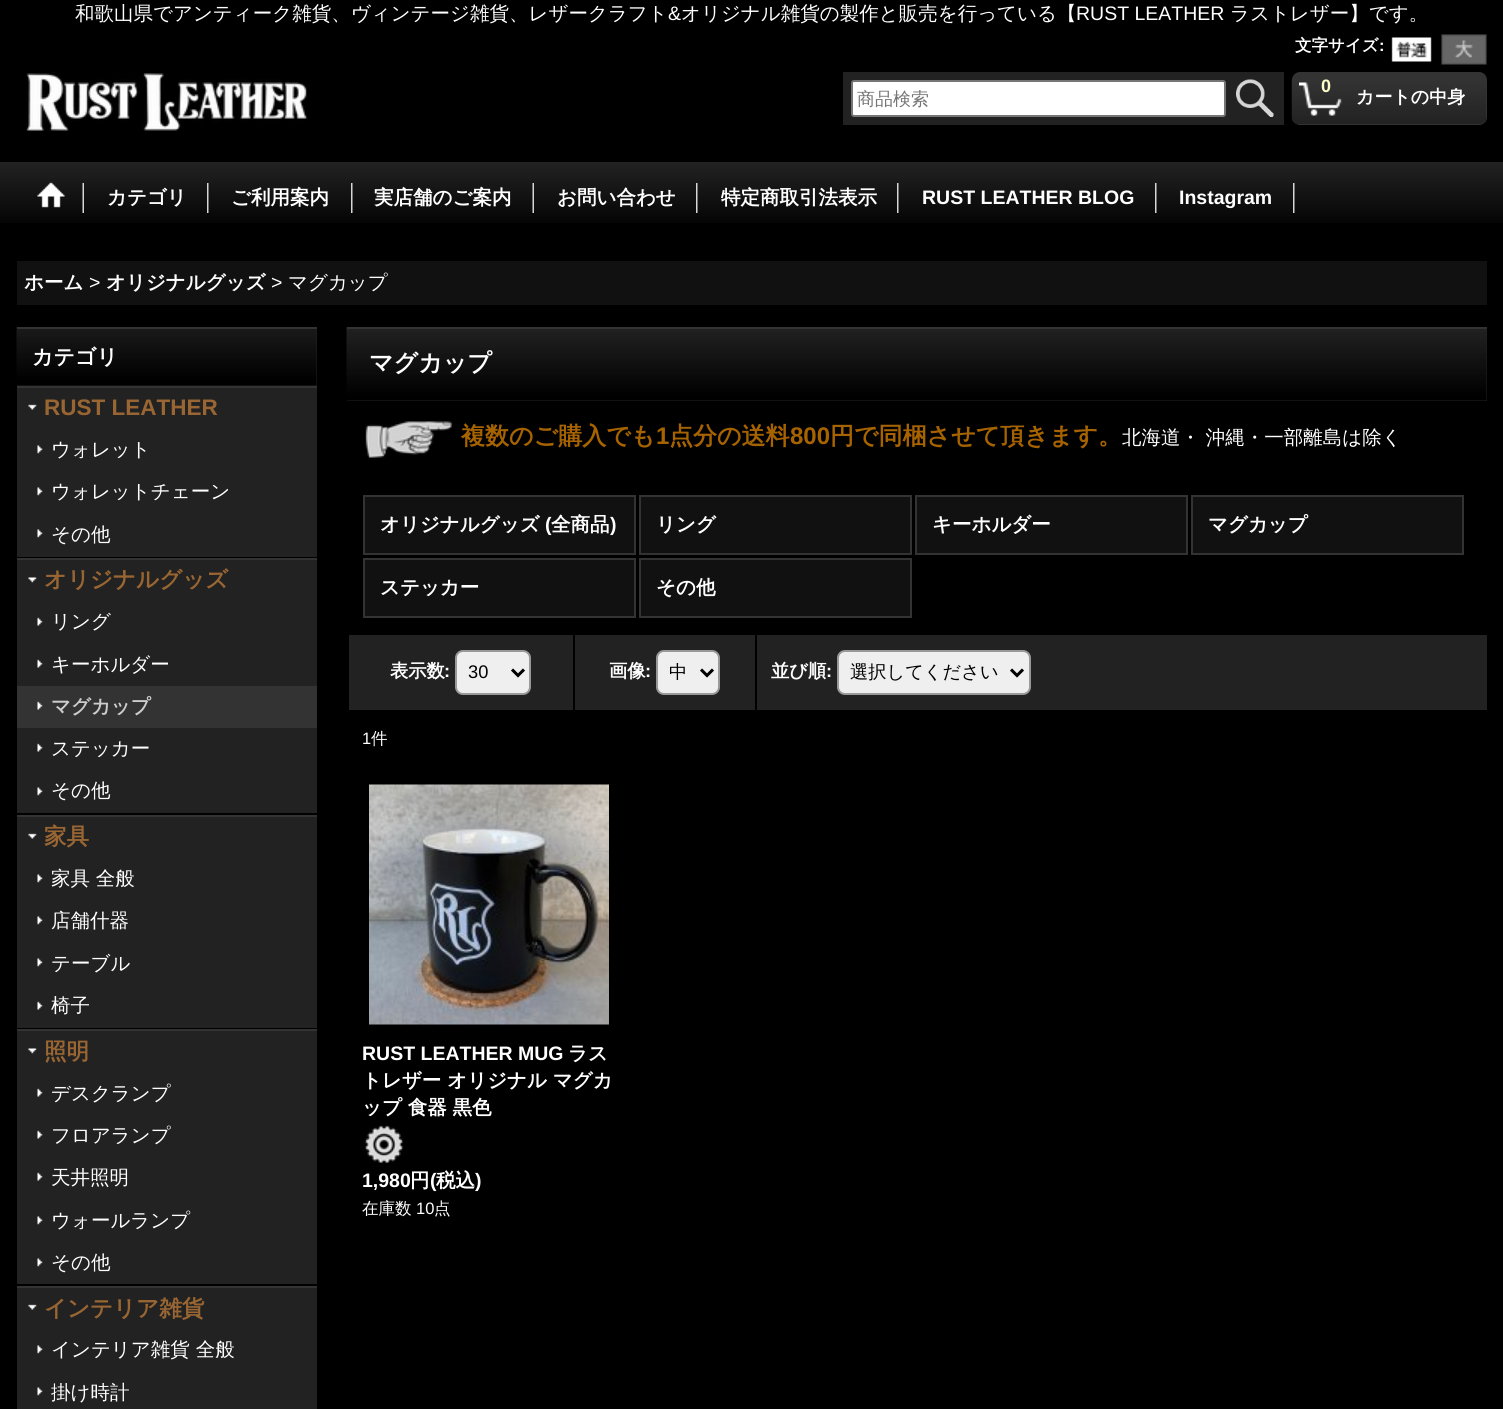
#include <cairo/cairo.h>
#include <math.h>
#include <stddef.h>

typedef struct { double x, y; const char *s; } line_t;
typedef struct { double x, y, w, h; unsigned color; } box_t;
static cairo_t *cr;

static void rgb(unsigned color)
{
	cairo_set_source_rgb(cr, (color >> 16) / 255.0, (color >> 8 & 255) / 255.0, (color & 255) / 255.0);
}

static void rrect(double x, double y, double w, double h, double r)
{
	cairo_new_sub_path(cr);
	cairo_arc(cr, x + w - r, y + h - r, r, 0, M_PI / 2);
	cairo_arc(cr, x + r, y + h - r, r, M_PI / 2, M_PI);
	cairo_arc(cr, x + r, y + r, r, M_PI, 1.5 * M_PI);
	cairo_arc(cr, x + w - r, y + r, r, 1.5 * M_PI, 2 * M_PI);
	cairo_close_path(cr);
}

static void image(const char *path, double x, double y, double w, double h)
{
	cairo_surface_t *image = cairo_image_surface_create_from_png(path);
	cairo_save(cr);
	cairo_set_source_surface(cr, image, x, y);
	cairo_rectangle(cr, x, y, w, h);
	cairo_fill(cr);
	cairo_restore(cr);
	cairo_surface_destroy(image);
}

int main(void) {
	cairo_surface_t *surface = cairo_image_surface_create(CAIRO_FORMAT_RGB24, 1503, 1409);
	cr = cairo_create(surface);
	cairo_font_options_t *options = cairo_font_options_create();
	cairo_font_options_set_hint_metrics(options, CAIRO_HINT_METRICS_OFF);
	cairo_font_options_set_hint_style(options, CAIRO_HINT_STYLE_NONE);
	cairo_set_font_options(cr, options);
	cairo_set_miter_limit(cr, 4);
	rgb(0x000000);
	cairo_paint(cr);
	image("img/1.png", 1391, 37, 41, 25);
	image("img/2.png", 1441, 34, 46, 31);
	image("img/3.png", 26, 72, 282, 59);
	rgb(0x222222);
	cairo_rectangle(cr, 843, 72, 441, 53);
	cairo_fill(cr);
	rgb(0xffffff);
	rrect(852, 81, 373, 35, 2);
	cairo_fill_preserve(cr);
	rgb(0x767676);
	cairo_stroke(cr);
	image("img/4.png", 1236, 79, 38, 38);
	rgb(0x333333);
	rrect(1292, 72, 195, 53, 8);
	cairo_fill(cr);
	image("img/5.png", 1291, 79, 195, 45);
	image("img/6.png", 1299, 82, 43, 34);
	image("img/7.png", 0, 162, 1503, 61);
	image("img/8.png", 82, 183, 2, 30);
	image("img/9.png", 37, 182, 28, 26);
	image("img/10.png", 207, 183, 2, 30);
	image("img/10.png", 351, 183, 2, 30);
	image("img/8.png", 532, 183, 2, 30);
	image("img/10.png", 696, 183, 2, 30);
	image("img/10.png", 897, 183, 2, 30);
	image("img/10.png", 1155, 183, 2, 30);
	image("img/10.png", 1293, 183, 2, 30);
	rgb(0x111111);
	cairo_rectangle(cr, 17, 261, 1470, 44);
	cairo_fill(cr);
	rgb(0x222222);
	cairo_rectangle(cr, 17, 329, 300, 57);
	cairo_fill(cr);
	image("img/11.png", 16, 327, 301, 59);
	{
		static const box_t items[] = {
			{17, 327, 300, 2, 0x333333},
			{17, 388, 300, 169, 0x222222},
			{17, 386, 300, 2, 0x333333},
		};
		for (size_t i = 0; i < sizeof items / sizeof *items; i++) {
			rgb(items[i].color);
			cairo_rectangle(cr, items[i].x, items[i].y, items[i].w, items[i].h);
			cairo_fill(cr);
		}
	}
	image("img/12.png", 28, 404, 9, 6);
	image("img/13.png", 37, 445, 6, 9);
	image("img/13.png", 37, 487, 6, 9);
	image("img/13.png", 37, 529, 6, 9);
	rgb(0x222222);
	cairo_rectangle(cr, 17, 560, 300, 253);
	cairo_fill(cr);
	rgb(0x333333);
	cairo_rectangle(cr, 17, 558, 300, 2);
	cairo_fill(cr);
	image("img/14.png", 28, 577, 9, 6);
	image("img/15.png", 37, 617, 6, 9);
	image("img/15.png", 37, 659, 6, 9);
	cairo_rectangle(cr, 17, 686, 300, 42);
	cairo_fill(cr);
	image("img/16.png", 37, 701, 6, 9);
	image("img/15.png", 37, 743, 6, 9);
	image("img/13.png", 37, 787, 6, 9);
	rgb(0x222222);
	cairo_rectangle(cr, 17, 817, 300, 211);
	cairo_fill(cr);
	rgb(0x333333);
	cairo_rectangle(cr, 17, 815, 300, 2);
	cairo_fill(cr);
	image("img/12.png", 28, 833, 9, 6);
	image("img/13.png", 37, 874, 6, 9);
	image("img/13.png", 37, 916, 6, 9);
	image("img/13.png", 37, 958, 6, 9);
	image("img/15.png", 37, 1001, 6, 9);
	rgb(0x222222);
	cairo_rectangle(cr, 17, 1031, 300, 253);
	cairo_fill(cr);
	rgb(0x333333);
	cairo_rectangle(cr, 17, 1029, 300, 2);
	cairo_fill(cr);
	image("img/14.png", 28, 1048, 9, 6);
	image("img/15.png", 37, 1088, 6, 9);
	image("img/15.png", 37, 1130, 6, 9);
	image("img/15.png", 37, 1172, 6, 9);
	image("img/13.png", 37, 1216, 6, 9);
	image("img/13.png", 37, 1258, 6, 9);
	rgb(0x222222);
	cairo_rectangle(cr, 17, 1288, 300, 121);
	cairo_fill(cr);
	rgb(0x333333);
	cairo_rectangle(cr, 17, 1286, 300, 2);
	cairo_fill(cr);
	image("img/12.png", 28, 1304, 9, 6);
	image("img/13.png", 37, 1345, 6, 9);
	image("img/13.png", 37, 1387, 6, 9);
	rgb(0x222222);
	cairo_rectangle(cr, 347, 329, 1140, 72);
	cairo_fill(cr);
	image("img/17.png", 346, 327, 1141, 74);
	rgb(0x333333);
	cairo_rectangle(cr, 347, 327, 1140, 2);
	cairo_fill(cr);
	image("img/18.png", 365, 421, 88, 38);
	rgb(0x111111);
	cairo_rectangle(cr, 364, 496, 271, 58);
	cairo_fill_preserve(cr);
	rgb(0x333333);
	cairo_stroke(cr);
	rgb(0x111111);
	cairo_rectangle(cr, 640, 496, 271, 58);
	cairo_fill_preserve(cr);
	rgb(0x333333);
	cairo_stroke(cr);
	rgb(0x111111);
	cairo_rectangle(cr, 916, 496, 271, 58);
	cairo_fill_preserve(cr);
	rgb(0x333333);
	cairo_stroke(cr);
	rgb(0x111111);
	cairo_rectangle(cr, 1192, 496, 271, 58);
	cairo_fill_preserve(cr);
	rgb(0x333333);
	cairo_stroke(cr);
	rgb(0x111111);
	cairo_rectangle(cr, 364, 559, 271, 58);
	cairo_fill_preserve(cr);
	rgb(0x333333);
	cairo_stroke(cr);
	rgb(0x111111);
	cairo_rectangle(cr, 640, 559, 271, 58);
	cairo_fill_preserve(cr);
	rgb(0x333333);
	cairo_stroke(cr);
	rgb(0x222222);
	cairo_rectangle(cr, 349, 635, 1138, 75);
	cairo_fill(cr);
	rgb(0xefefef);
	rrect(456, 651, 74, 43, 7);
	cairo_fill_preserve(cr);
	rgb(0x999999);
	cairo_stroke(cr);
	cairo_new_path(cr);
	cairo_move_to(cr, 512, 669.5);
	cairo_line_to(cr, 518, 675.5);
	cairo_line_to(cr, 524, 669.5);
	rgb(0x000000);
	cairo_set_line_width(cr, 3);
	cairo_stroke(cr);
	cairo_rectangle(cr, 573, 635, 2, 75);
	cairo_fill(cr);
	rgb(0xefefef);
	rrect(657, 651, 62, 43, 7);
	cairo_fill_preserve(cr);
	rgb(0x999999);
	cairo_set_line_width(cr, 2);
	cairo_stroke(cr);
	cairo_new_path(cr);
	cairo_move_to(cr, 701, 669.5);
	cairo_line_to(cr, 707, 675.5);
	cairo_line_to(cr, 713, 669.5);
	rgb(0x000000);
	cairo_set_line_width(cr, 3);
	cairo_stroke(cr);
	cairo_rectangle(cr, 755, 635, 2, 75);
	cairo_fill(cr);
	rgb(0xefefef);
	rrect(838, 651, 192, 43, 7);
	cairo_fill_preserve(cr);
	rgb(0x999999);
	cairo_set_line_width(cr, 2);
	cairo_stroke(cr);
	cairo_new_path(cr);
	cairo_move_to(cr, 1011, 669.5);
	cairo_line_to(cr, 1017, 675.5);
	cairo_line_to(cr, 1023, 669.5);
	rgb(0x000000);
	cairo_set_line_width(cr, 3);
	cairo_stroke(cr);
	image("img/19.png", 369, 784, 240, 241);
	image("img/20.png", 364, 1125, 40, 42);
	cairo_select_font_face(cr, "WenQuanYi Zen Hei Medium", CAIRO_FONT_SLANT_NORMAL, CAIRO_FONT_WEIGHT_NORMAL);
	cairo_set_font_size(cr, 19.5);
	rgb(0xffffff);
	cairo_move_to(cr, 75, 20);
	cairo_show_text(cr, "和歌山県でアンティーク雑貨、ヴィンテージ雑貨、レザークラフト");
	cairo_select_font_face(cr, "Liberation Sans", CAIRO_FONT_SLANT_NORMAL, CAIRO_FONT_WEIGHT_NORMAL);
	cairo_move_to(cr, 668, 20);
	cairo_show_text(cr, "&");
	cairo_select_font_face(cr, "WenQuanYi Zen Hei Medium", CAIRO_FONT_SLANT_NORMAL, CAIRO_FONT_WEIGHT_NORMAL);
	cairo_move_to(cr, 681, 20);
	cairo_show_text(cr, "オリジナル雑貨の製作と販売を行っている【");
	cairo_select_font_face(cr, "Liberation Sans", CAIRO_FONT_SLANT_NORMAL, CAIRO_FONT_WEIGHT_NORMAL);
	cairo_move_to(cr, 1076, 20);
	cairo_show_text(cr, "RUST LEATHER");
	cairo_select_font_face(cr, "WenQuanYi Zen Hei Medium", CAIRO_FONT_SLANT_NORMAL, CAIRO_FONT_WEIGHT_NORMAL);
	cairo_move_to(cr, 1230, 20);
	cairo_show_text(cr, "ラストレザー】です。");
	cairo_select_font_face(cr, "WenQuanYi Zen Hei", CAIRO_FONT_SLANT_NORMAL, CAIRO_FONT_WEIGHT_BOLD);
	cairo_set_font_size(cr, 16.5);
	cairo_move_to(cr, 1295, 51);
	cairo_show_text(cr, "文字サイズ");
	cairo_select_font_face(cr, "Liberation Sans", CAIRO_FONT_SLANT_NORMAL, CAIRO_FONT_WEIGHT_BOLD);
	cairo_move_to(cr, 1379, 51);
	cairo_show_text(cr, ":");
	cairo_select_font_face(cr, "WenQuanYi Zen Hei Medium", CAIRO_FONT_SLANT_NORMAL, CAIRO_FONT_WEIGHT_NORMAL);
	cairo_set_font_size(cr, 18);
	rgb(0x757575);
	cairo_move_to(cr, 857, 105);
	cairo_show_text(cr, "商品検索");
	cairo_select_font_face(cr, "Liberation Sans", CAIRO_FONT_SLANT_NORMAL, CAIRO_FONT_WEIGHT_BOLD);
	rgb(0xffffcc);
	cairo_move_to(cr, 1321, 92);
	cairo_show_text(cr, "0");
	cairo_select_font_face(cr, "WenQuanYi Zen Hei", CAIRO_FONT_SLANT_NORMAL, CAIRO_FONT_WEIGHT_BOLD);
	rgb(0xffffff);
	cairo_move_to(cr, 1356, 103);
	cairo_show_text(cr, "カートの中身");
	cairo_set_font_size(cr, 19.5);
	{
		static const line_t items[] = {
			{107, 204, "カテゴリ"},
			{231, 204, "ご利用案内"},
			{374, 204, "実店舗のご案内"},
			{557, 204, "お問い合わせ"},
			{721, 204, "特定商取引法表示"},
		};
		for (size_t i = 0; i < sizeof items / sizeof *items; i++) {
			cairo_move_to(cr, items[i].x, items[i].y);
			cairo_show_text(cr, items[i].s);
		}
	}
	cairo_select_font_face(cr, "Liberation Sans", CAIRO_FONT_SLANT_NORMAL, CAIRO_FONT_WEIGHT_BOLD);
	cairo_move_to(cr, 922, 204);
	cairo_show_text(cr, "RUST LEATHER BLOG");
	cairo_move_to(cr, 1179, 204);
	cairo_show_text(cr, "Instagram");
	cairo_select_font_face(cr, "WenQuanYi Zen Hei", CAIRO_FONT_SLANT_NORMAL, CAIRO_FONT_WEIGHT_BOLD);
	cairo_move_to(cr, 24, 289);
	cairo_show_text(cr, "ホーム");
	cairo_select_font_face(cr, "Liberation Sans", CAIRO_FONT_SLANT_NORMAL, CAIRO_FONT_WEIGHT_NORMAL);
	cairo_move_to(cr, 89, 289);
	cairo_show_text(cr, ">");
	cairo_select_font_face(cr, "WenQuanYi Zen Hei", CAIRO_FONT_SLANT_NORMAL, CAIRO_FONT_WEIGHT_BOLD);
	cairo_move_to(cr, 106, 289);
	cairo_show_text(cr, "オリジナルグッズ");
	cairo_select_font_face(cr, "Liberation Sans", CAIRO_FONT_SLANT_NORMAL, CAIRO_FONT_WEIGHT_NORMAL);
	cairo_move_to(cr, 271, 289);
	cairo_show_text(cr, ">");
	cairo_select_font_face(cr, "WenQuanYi Zen Hei Medium", CAIRO_FONT_SLANT_NORMAL, CAIRO_FONT_WEIGHT_NORMAL);
	cairo_move_to(cr, 288, 289);
	cairo_show_text(cr, "マグカップ");
	cairo_select_font_face(cr, "WenQuanYi Zen Hei", CAIRO_FONT_SLANT_NORMAL, CAIRO_FONT_WEIGHT_BOLD);
	cairo_set_font_size(cr, 21);
	cairo_move_to(cr, 32, 364);
	cairo_show_text(cr, "カテゴリ");
	cairo_select_font_face(cr, "Liberation Sans", CAIRO_FONT_SLANT_NORMAL, CAIRO_FONT_WEIGHT_BOLD);
	cairo_set_font_size(cr, 22.5);
	rgb(0x996633);
	cairo_move_to(cr, 44, 415);
	cairo_show_text(cr, "RUST LEATHER");
	cairo_select_font_face(cr, "WenQuanYi Zen Hei Medium", CAIRO_FONT_SLANT_NORMAL, CAIRO_FONT_WEIGHT_NORMAL);
	cairo_set_font_size(cr, 19.5);
	rgb(0xffffff);
	{
		static const line_t items[] = {
			{51, 456, "ウォレット"},
			{51, 498, "ウォレットチェーン"},
			{51, 541, "その他"},
		};
		for (size_t i = 0; i < sizeof items / sizeof *items; i++) {
			cairo_move_to(cr, items[i].x, items[i].y);
			cairo_show_text(cr, items[i].s);
		}
	}
	cairo_select_font_face(cr, "WenQuanYi Zen Hei", CAIRO_FONT_SLANT_NORMAL, CAIRO_FONT_WEIGHT_BOLD);
	cairo_set_font_size(cr, 22.5);
	rgb(0x996633);
	cairo_move_to(cr, 44, 587);
	cairo_show_text(cr, "オリジナルグッズ");
	cairo_select_font_face(cr, "WenQuanYi Zen Hei Medium", CAIRO_FONT_SLANT_NORMAL, CAIRO_FONT_WEIGHT_NORMAL);
	cairo_set_font_size(cr, 19.5);
	rgb(0xffffff);
	cairo_move_to(cr, 51, 628);
	cairo_show_text(cr, "リング");
	cairo_move_to(cr, 51, 671);
	cairo_show_text(cr, "キーホルダー");
	cairo_select_font_face(cr, "WenQuanYi Zen Hei", CAIRO_FONT_SLANT_NORMAL, CAIRO_FONT_WEIGHT_BOLD);
	rgb(0xcccccc);
	cairo_move_to(cr, 51, 713);
	cairo_show_text(cr, "マグカップ");
	cairo_select_font_face(cr, "WenQuanYi Zen Hei Medium", CAIRO_FONT_SLANT_NORMAL, CAIRO_FONT_WEIGHT_NORMAL);
	rgb(0xffffff);
	cairo_move_to(cr, 51, 755);
	cairo_show_text(cr, "ステッカー");
	cairo_move_to(cr, 51, 797);
	cairo_show_text(cr, "その他");
	cairo_select_font_face(cr, "WenQuanYi Zen Hei", CAIRO_FONT_SLANT_NORMAL, CAIRO_FONT_WEIGHT_BOLD);
	cairo_set_font_size(cr, 22.5);
	rgb(0x996633);
	cairo_move_to(cr, 44, 844);
	cairo_show_text(cr, "家具");
	cairo_select_font_face(cr, "WenQuanYi Zen Hei Medium", CAIRO_FONT_SLANT_NORMAL, CAIRO_FONT_WEIGHT_NORMAL);
	cairo_set_font_size(cr, 19.5);
	rgb(0xffffff);
	{
		static const line_t items[] = {
			{51, 885, "家具 全般"},
			{51, 927, "店舗什器"},
			{51, 970, "テーブル"},
			{51, 1012, "椅子"},
		};
		for (size_t i = 0; i < sizeof items / sizeof *items; i++) {
			cairo_move_to(cr, items[i].x, items[i].y);
			cairo_show_text(cr, items[i].s);
		}
	}
	cairo_select_font_face(cr, "WenQuanYi Zen Hei", CAIRO_FONT_SLANT_NORMAL, CAIRO_FONT_WEIGHT_BOLD);
	cairo_set_font_size(cr, 22.5);
	rgb(0x996633);
	cairo_move_to(cr, 44, 1059);
	cairo_show_text(cr, "照明");
	cairo_select_font_face(cr, "WenQuanYi Zen Hei Medium", CAIRO_FONT_SLANT_NORMAL, CAIRO_FONT_WEIGHT_NORMAL);
	cairo_set_font_size(cr, 19.5);
	rgb(0xffffff);
	{
		static const line_t items[] = {
			{51, 1100, "デスクランプ"},
			{51, 1142, "フロアランプ"},
			{51, 1184, "天井照明"},
			{51, 1227, "ウォールランプ"},
			{51, 1269, "その他"},
		};
		for (size_t i = 0; i < sizeof items / sizeof *items; i++) {
			cairo_move_to(cr, items[i].x, items[i].y);
			cairo_show_text(cr, items[i].s);
		}
	}
	cairo_select_font_face(cr, "WenQuanYi Zen Hei", CAIRO_FONT_SLANT_NORMAL, CAIRO_FONT_WEIGHT_BOLD);
	cairo_set_font_size(cr, 22.5);
	rgb(0x996633);
	cairo_move_to(cr, 44, 1316);
	cairo_show_text(cr, "インテリア雑貨");
	cairo_select_font_face(cr, "WenQuanYi Zen Hei Medium", CAIRO_FONT_SLANT_NORMAL, CAIRO_FONT_WEIGHT_NORMAL);
	cairo_set_font_size(cr, 19.5);
	rgb(0xffffff);
	cairo_move_to(cr, 51, 1356);
	cairo_show_text(cr, "インテリア雑貨 全般");
	cairo_move_to(cr, 51, 1399);
	cairo_show_text(cr, "掛け時計");
	cairo_select_font_face(cr, "WenQuanYi Zen Hei", CAIRO_FONT_SLANT_NORMAL, CAIRO_FONT_WEIGHT_BOLD);
	cairo_set_font_size(cr, 24);
	cairo_move_to(cr, 369, 371);
	cairo_show_text(cr, "マグカップ");
	rgb(0xa66300);
	cairo_move_to(cr, 461, 444);
	cairo_show_text(cr, "複数のご購入でも");
	cairo_select_font_face(cr, "Liberation Sans", CAIRO_FONT_SLANT_NORMAL, CAIRO_FONT_WEIGHT_BOLD);
	cairo_move_to(cr, 656, 444);
	cairo_show_text(cr, "1");
	cairo_select_font_face(cr, "WenQuanYi Zen Hei", CAIRO_FONT_SLANT_NORMAL, CAIRO_FONT_WEIGHT_BOLD);
	cairo_move_to(cr, 669, 444);
	cairo_show_text(cr, "点分の送料");
	cairo_select_font_face(cr, "Liberation Sans", CAIRO_FONT_SLANT_NORMAL, CAIRO_FONT_WEIGHT_BOLD);
	cairo_move_to(cr, 790, 444);
	cairo_show_text(cr, "800");
	cairo_select_font_face(cr, "WenQuanYi Zen Hei", CAIRO_FONT_SLANT_NORMAL, CAIRO_FONT_WEIGHT_BOLD);
	cairo_move_to(cr, 830, 444);
	cairo_show_text(cr, "円で同梱させて頂きます。");
	cairo_select_font_face(cr, "WenQuanYi Zen Hei Medium", CAIRO_FONT_SLANT_NORMAL, CAIRO_FONT_WEIGHT_NORMAL);
	cairo_set_font_size(cr, 19.5);
	rgb(0xffffff);
	cairo_move_to(cr, 1122, 444);
	cairo_show_text(cr, "北海道・ 沖縄・一部離島は除く");
	cairo_select_font_face(cr, "WenQuanYi Zen Hei", CAIRO_FONT_SLANT_NORMAL, CAIRO_FONT_WEIGHT_BOLD);
	cairo_move_to(cr, 380, 531);
	cairo_show_text(cr, "オリジナルグッズ");
	cairo_select_font_face(cr, "Liberation Sans", CAIRO_FONT_SLANT_NORMAL, CAIRO_FONT_WEIGHT_BOLD);
	cairo_move_to(cr, 545, 531);
	cairo_show_text(cr, "(");
	cairo_select_font_face(cr, "WenQuanYi Zen Hei", CAIRO_FONT_SLANT_NORMAL, CAIRO_FONT_WEIGHT_BOLD);
	cairo_move_to(cr, 551, 531);
	cairo_show_text(cr, "全商品");
	cairo_select_font_face(cr, "Liberation Sans", CAIRO_FONT_SLANT_NORMAL, CAIRO_FONT_WEIGHT_BOLD);
	cairo_move_to(cr, 610, 531);
	cairo_show_text(cr, ")");
	cairo_select_font_face(cr, "WenQuanYi Zen Hei", CAIRO_FONT_SLANT_NORMAL, CAIRO_FONT_WEIGHT_BOLD);
	{
		static const line_t items[] = {
			{656, 531, "リング"},
			{932, 531, "キーホルダー"},
			{1208, 531, "マグカップ"},
			{380, 594, "ステッカー"},
			{656, 594, "その他"},
		};
		for (size_t i = 0; i < sizeof items / sizeof *items; i++) {
			cairo_move_to(cr, items[i].x, items[i].y);
			cairo_show_text(cr, items[i].s);
		}
	}
	cairo_set_font_size(cr, 18.25);
	cairo_move_to(cr, 390, 677);
	cairo_show_text(cr, "表示数");
	cairo_select_font_face(cr, "Liberation Sans", CAIRO_FONT_SLANT_NORMAL, CAIRO_FONT_WEIGHT_BOLD);
	cairo_move_to(cr, 444, 677);
	cairo_show_text(cr, ":");
	cairo_select_font_face(cr, "Liberation Sans", CAIRO_FONT_SLANT_NORMAL, CAIRO_FONT_WEIGHT_NORMAL);
	rgb(0x000000);
	cairo_move_to(cr, 468, 678);
	cairo_show_text(cr, "30");
	cairo_select_font_face(cr, "WenQuanYi Zen Hei", CAIRO_FONT_SLANT_NORMAL, CAIRO_FONT_WEIGHT_BOLD);
	rgb(0xffffff);
	cairo_move_to(cr, 609, 677);
	cairo_show_text(cr, "画像");
	cairo_select_font_face(cr, "Liberation Sans", CAIRO_FONT_SLANT_NORMAL, CAIRO_FONT_WEIGHT_BOLD);
	cairo_move_to(cr, 645, 677);
	cairo_show_text(cr, ":");
	cairo_select_font_face(cr, "WenQuanYi Zen Hei Medium", CAIRO_FONT_SLANT_NORMAL, CAIRO_FONT_WEIGHT_NORMAL);
	rgb(0x000000);
	cairo_move_to(cr, 669, 678);
	cairo_show_text(cr, "中");
	cairo_select_font_face(cr, "WenQuanYi Zen Hei", CAIRO_FONT_SLANT_NORMAL, CAIRO_FONT_WEIGHT_BOLD);
	rgb(0xffffff);
	cairo_move_to(cr, 771, 677);
	cairo_show_text(cr, "並び順");
	cairo_select_font_face(cr, "Liberation Sans", CAIRO_FONT_SLANT_NORMAL, CAIRO_FONT_WEIGHT_BOLD);
	cairo_move_to(cr, 826, 677);
	cairo_show_text(cr, ":");
	cairo_select_font_face(cr, "WenQuanYi Zen Hei Medium", CAIRO_FONT_SLANT_NORMAL, CAIRO_FONT_WEIGHT_NORMAL);
	rgb(0x000000);
	cairo_move_to(cr, 850, 678);
	cairo_show_text(cr, "選択してください");
	cairo_select_font_face(cr, "Liberation Sans", CAIRO_FONT_SLANT_NORMAL, CAIRO_FONT_WEIGHT_NORMAL);
	cairo_set_font_size(cr, 16.5);
	rgb(0xffffff);
	cairo_move_to(cr, 362, 744);
	cairo_show_text(cr, "1");
	cairo_select_font_face(cr, "WenQuanYi Zen Hei Medium", CAIRO_FONT_SLANT_NORMAL, CAIRO_FONT_WEIGHT_NORMAL);
	cairo_move_to(cr, 371, 744);
	cairo_show_text(cr, "件");
	cairo_select_font_face(cr, "Liberation Sans", CAIRO_FONT_SLANT_NORMAL, CAIRO_FONT_WEIGHT_BOLD);
	cairo_set_font_size(cr, 19.5);
	cairo_move_to(cr, 362, 1060);
	cairo_show_text(cr, "RUST LEATHER MUG");
	cairo_select_font_face(cr, "WenQuanYi Zen Hei", CAIRO_FONT_SLANT_NORMAL, CAIRO_FONT_WEIGHT_BOLD);
	{
		static const line_t items[] = {
			{568, 1060, "ラス"},
			{362, 1087, "トレザー オリジナル マグカ"},
			{362, 1114, "ップ 食器 黒色"},
		};
		for (size_t i = 0; i < sizeof items / sizeof *items; i++) {
			cairo_move_to(cr, items[i].x, items[i].y);
			cairo_show_text(cr, items[i].s);
		}
	}
	cairo_select_font_face(cr, "Liberation Sans", CAIRO_FONT_SLANT_NORMAL, CAIRO_FONT_WEIGHT_BOLD);
	cairo_move_to(cr, 362, 1187);
	cairo_show_text(cr, "1,980");
	cairo_select_font_face(cr, "WenQuanYi Zen Hei", CAIRO_FONT_SLANT_NORMAL, CAIRO_FONT_WEIGHT_BOLD);
	cairo_move_to(cr, 410, 1187);
	cairo_show_text(cr, "円");
	cairo_select_font_face(cr, "Liberation Sans", CAIRO_FONT_SLANT_NORMAL, CAIRO_FONT_WEIGHT_BOLD);
	cairo_move_to(cr, 430, 1187);
	cairo_show_text(cr, "(");
	cairo_select_font_face(cr, "WenQuanYi Zen Hei", CAIRO_FONT_SLANT_NORMAL, CAIRO_FONT_WEIGHT_BOLD);
	cairo_move_to(cr, 436, 1187);
	cairo_show_text(cr, "税込");
	cairo_select_font_face(cr, "Liberation Sans", CAIRO_FONT_SLANT_NORMAL, CAIRO_FONT_WEIGHT_BOLD);
	cairo_move_to(cr, 475, 1187);
	cairo_show_text(cr, ")");
	cairo_select_font_face(cr, "WenQuanYi Zen Hei Medium", CAIRO_FONT_SLANT_NORMAL, CAIRO_FONT_WEIGHT_NORMAL);
	cairo_set_font_size(cr, 16.5);
	cairo_move_to(cr, 362, 1214);
	cairo_show_text(cr, "在庫数");
	cairo_select_font_face(cr, "Liberation Sans", CAIRO_FONT_SLANT_NORMAL, CAIRO_FONT_WEIGHT_NORMAL);
	cairo_move_to(cr, 416, 1214);
	cairo_show_text(cr, "10");
	cairo_select_font_face(cr, "WenQuanYi Zen Hei Medium", CAIRO_FONT_SLANT_NORMAL, CAIRO_FONT_WEIGHT_NORMAL);
	cairo_move_to(cr, 434, 1214);
	cairo_show_text(cr, "点");
	cairo_surface_write_to_png(surface, "page.png");
	cairo_font_options_destroy(options);
	cairo_destroy(cr);
	cairo_surface_destroy(surface);
	return 0;
}
